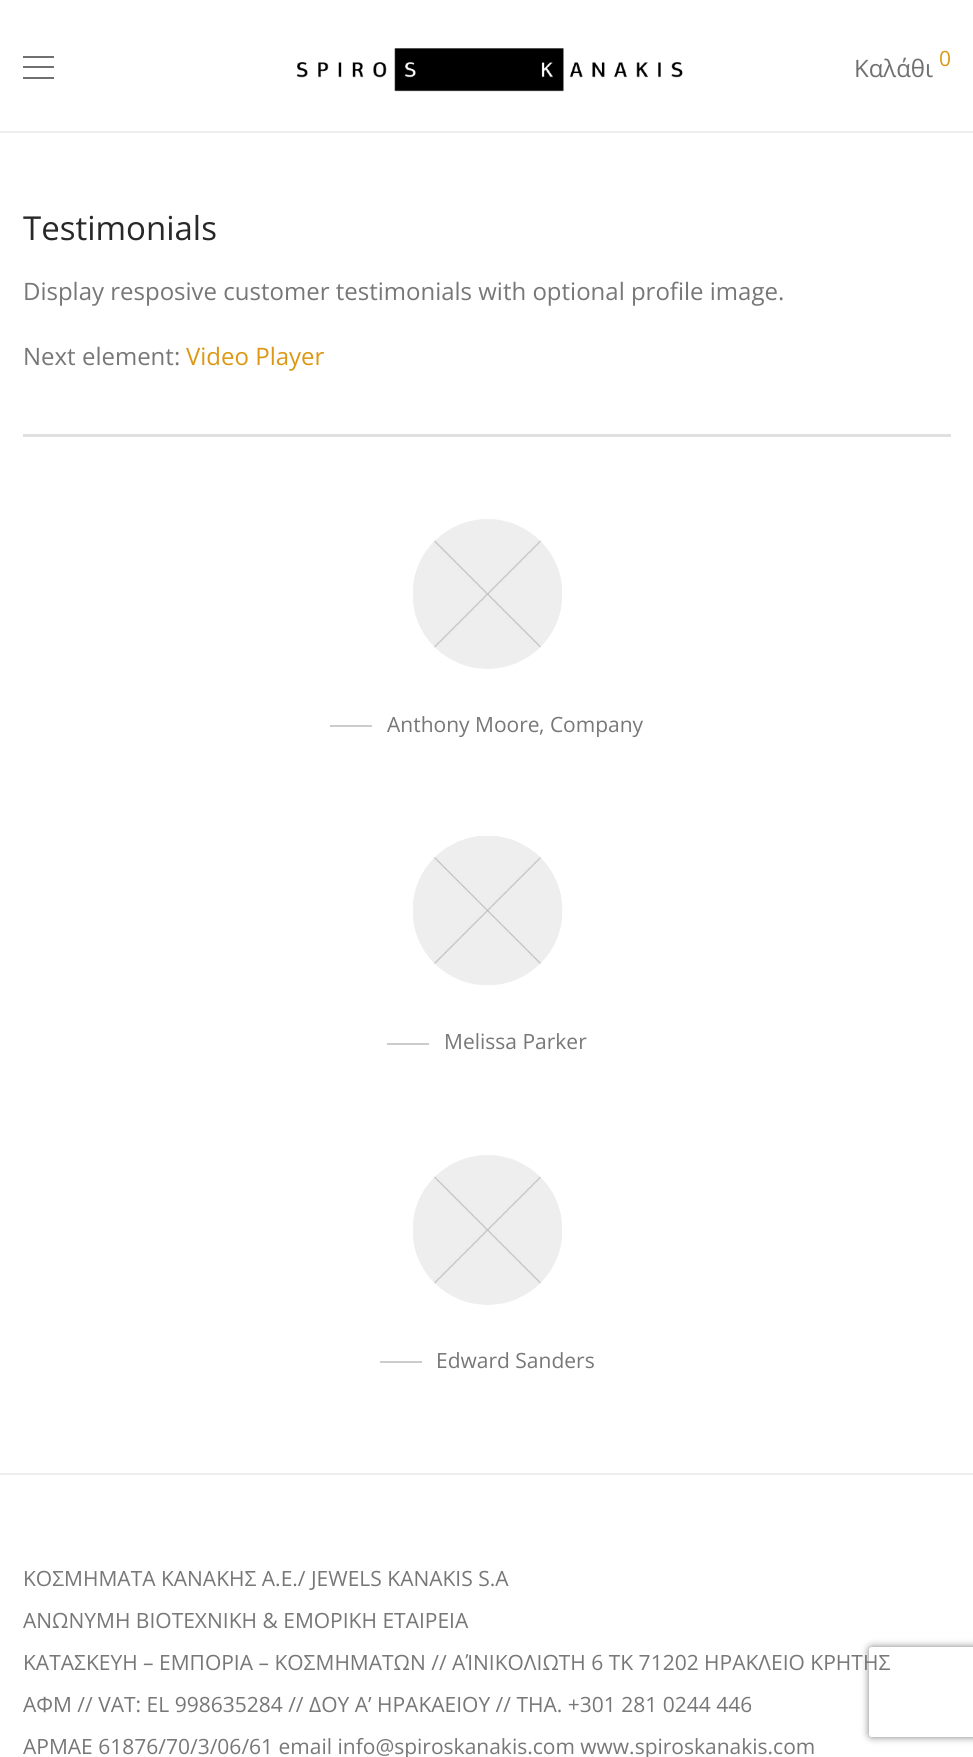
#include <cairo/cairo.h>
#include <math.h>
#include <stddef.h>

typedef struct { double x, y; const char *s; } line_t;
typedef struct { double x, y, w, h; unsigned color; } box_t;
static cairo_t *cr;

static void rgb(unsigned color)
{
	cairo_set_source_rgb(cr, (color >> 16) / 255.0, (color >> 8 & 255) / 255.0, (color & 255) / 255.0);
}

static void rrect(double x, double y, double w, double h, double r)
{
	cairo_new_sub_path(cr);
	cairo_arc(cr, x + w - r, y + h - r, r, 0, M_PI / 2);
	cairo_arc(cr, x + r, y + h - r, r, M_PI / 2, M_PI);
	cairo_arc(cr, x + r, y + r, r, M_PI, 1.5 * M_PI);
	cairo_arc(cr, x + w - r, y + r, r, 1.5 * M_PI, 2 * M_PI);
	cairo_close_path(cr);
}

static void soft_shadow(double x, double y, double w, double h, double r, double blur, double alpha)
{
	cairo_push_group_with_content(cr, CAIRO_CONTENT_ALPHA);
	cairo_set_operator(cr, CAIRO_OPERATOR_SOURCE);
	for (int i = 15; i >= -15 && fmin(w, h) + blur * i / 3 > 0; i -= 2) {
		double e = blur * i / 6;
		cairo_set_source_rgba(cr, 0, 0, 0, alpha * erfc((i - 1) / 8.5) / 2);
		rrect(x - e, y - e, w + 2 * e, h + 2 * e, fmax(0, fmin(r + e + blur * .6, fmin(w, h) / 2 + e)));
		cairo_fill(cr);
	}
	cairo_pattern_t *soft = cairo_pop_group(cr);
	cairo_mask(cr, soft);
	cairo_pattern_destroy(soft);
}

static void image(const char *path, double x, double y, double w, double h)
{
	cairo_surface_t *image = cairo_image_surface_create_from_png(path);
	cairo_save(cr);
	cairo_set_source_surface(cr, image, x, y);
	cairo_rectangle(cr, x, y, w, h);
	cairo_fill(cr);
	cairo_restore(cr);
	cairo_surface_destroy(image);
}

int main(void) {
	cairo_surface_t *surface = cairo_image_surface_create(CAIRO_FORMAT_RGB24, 973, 1757);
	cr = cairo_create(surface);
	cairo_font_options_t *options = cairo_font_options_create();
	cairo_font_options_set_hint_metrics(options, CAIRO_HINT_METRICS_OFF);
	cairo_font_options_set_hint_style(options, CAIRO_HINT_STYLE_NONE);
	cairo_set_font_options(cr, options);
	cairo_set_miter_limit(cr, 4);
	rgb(0xffffff);
	cairo_paint(cr);
	{
		static const box_t items[] = {
			{0, 131, 973, 2, 0xeeeeee},
			{23, 56, 31, 2, 0x707070},
			{23, 66, 31, 2, 0x707070},
			{23, 77, 31, 2, 0x707070},
		};
		for (size_t i = 0; i < sizeof items / sizeof *items; i++) {
			rgb(items[i].color);
			cairo_rectangle(cr, items[i].x, items[i].y, items[i].w, items[i].h);
			cairo_fill(cr);
		}
	}
	image("img/1.png", 296, 48, 387, 44);
	rgb(0xe0e0e0);
	cairo_rectangle(cr, 23, 434, 928, 3);
	cairo_fill(cr);
	image("img/2.png", 413, 519, 149, 150);
	rgb(0xcccccc);
	cairo_rectangle(cr, 330, 725, 42, 2);
	cairo_fill(cr);
	image("img/3.png", 413, 836, 150, 149);
	cairo_rectangle(cr, 387, 1043, 42, 2);
	cairo_fill(cr);
	image("img/4.png", 413, 1155, 149, 150);
	cairo_rectangle(cr, 380, 1361, 42, 2);
	cairo_fill(cr);
	rgb(0xeeeeee);
	cairo_rectangle(cr, 0, 1473, 973, 2);
	cairo_fill(cr);
	cairo_save(cr);
	cairo_set_fill_rule(cr, CAIRO_FILL_RULE_EVEN_ODD);
	cairo_new_path(cr);
	cairo_move_to(cr, 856, 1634);
	cairo_line_to(cr, 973, 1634);
	cairo_line_to(cr, 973, 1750);
	cairo_line_to(cr, 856, 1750);
	cairo_close_path(cr);
	cairo_move_to(cr, 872, 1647);
	cairo_line_to(cr, 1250, 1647);
	cairo_curve_to(cr, 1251.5, 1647, 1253, 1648.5, 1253, 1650);
	cairo_line_to(cr, 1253, 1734);
	cairo_curve_to(cr, 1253, 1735.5, 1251.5, 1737, 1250, 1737);
	cairo_line_to(cr, 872, 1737);
	cairo_curve_to(cr, 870.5, 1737, 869, 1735.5, 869, 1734);
	cairo_line_to(cr, 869, 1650);
	cairo_curve_to(cr, 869, 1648.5, 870.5, 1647, 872, 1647);
	cairo_close_path(cr);
	cairo_clip(cr);
	rgb(0x808080);
	soft_shadow(869, 1647, 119, 90, 3, 4, 1);
	cairo_restore(cr);
	cairo_select_font_face(cr, "Open Sans", CAIRO_FONT_SLANT_NORMAL, CAIRO_FONT_WEIGHT_NORMAL);
	cairo_set_font_size(cr, 24);
	rgb(0x707070);
	cairo_move_to(cr, 854, 77);
	cairo_show_text(cr, "Καλάθι");
	cairo_set_font_size(cr, 21);
	rgb(0xdc9814);
	cairo_move_to(cr, 939, 66);
	cairo_show_text(cr, "0");
	cairo_set_font_size(cr, 33);
	rgb(0x282828);
	cairo_move_to(cr, 23, 240);
	cairo_show_text(cr, "Testimonials");
	cairo_set_font_size(cr, 24);
	rgb(0x777777);
	cairo_move_to(cr, 23, 300);
	cairo_show_text(cr, "Display resposive customer testimonials with optional profile image.");
	cairo_move_to(cr, 23, 365);
	cairo_show_text(cr, "Next element:");
	rgb(0xdc9814);
	cairo_move_to(cr, 186, 365);
	cairo_show_text(cr, "Video Player");
	cairo_set_font_size(cr, 21);
	rgb(0x777777);
	{
		static const line_t items[] = {
			{387, 732, "Anthony Moore"},
			{539, 732, ", Company"},
			{444, 1049, "Melissa Parker"},
			{436, 1368, "Edward Sanders"},
			{23, 1586, "ΚΟΣΜΗΜΑΤΑ KANAKHΣ A.E./ JEWELS KANAKIS S.A"},
			{23, 1628, "ANΩΝΥΜΗ BIOTEXNIKH & EMOPIKH ETAIPEIA"},
			{23, 1670, "ΚΑΤΑΣΚΕΥΗ – ΕΜΠΟΡΙΑ – ΚΟΣΜΗΜΑΤΩΝ // ΑΊΝΙΚΟΛΙΩΤΗ 6 TK 71202 ΗΡΑΚΛΕΙΟ ΚΡΗΤΗΣ"},
			{23, 1712, "ΑΦΜ // VAT: EL 998635284 // ΔΟΥ A’ HPAKAEIOY // THA. +301 281 0244 446"},
			{23, 1754, "ΑΡΜΑΕ 61876/70/3/06/61 email info@spiroskanakis.com www.spiroskanakis.com"},
		};
		for (size_t i = 0; i < sizeof items / sizeof *items; i++) {
			cairo_move_to(cr, items[i].x, items[i].y);
			cairo_show_text(cr, items[i].s);
		}
	}
	cairo_surface_write_to_png(surface, "page.png");
	cairo_font_options_destroy(options);
	cairo_destroy(cr);
	cairo_surface_destroy(surface);
	return 0;
}
